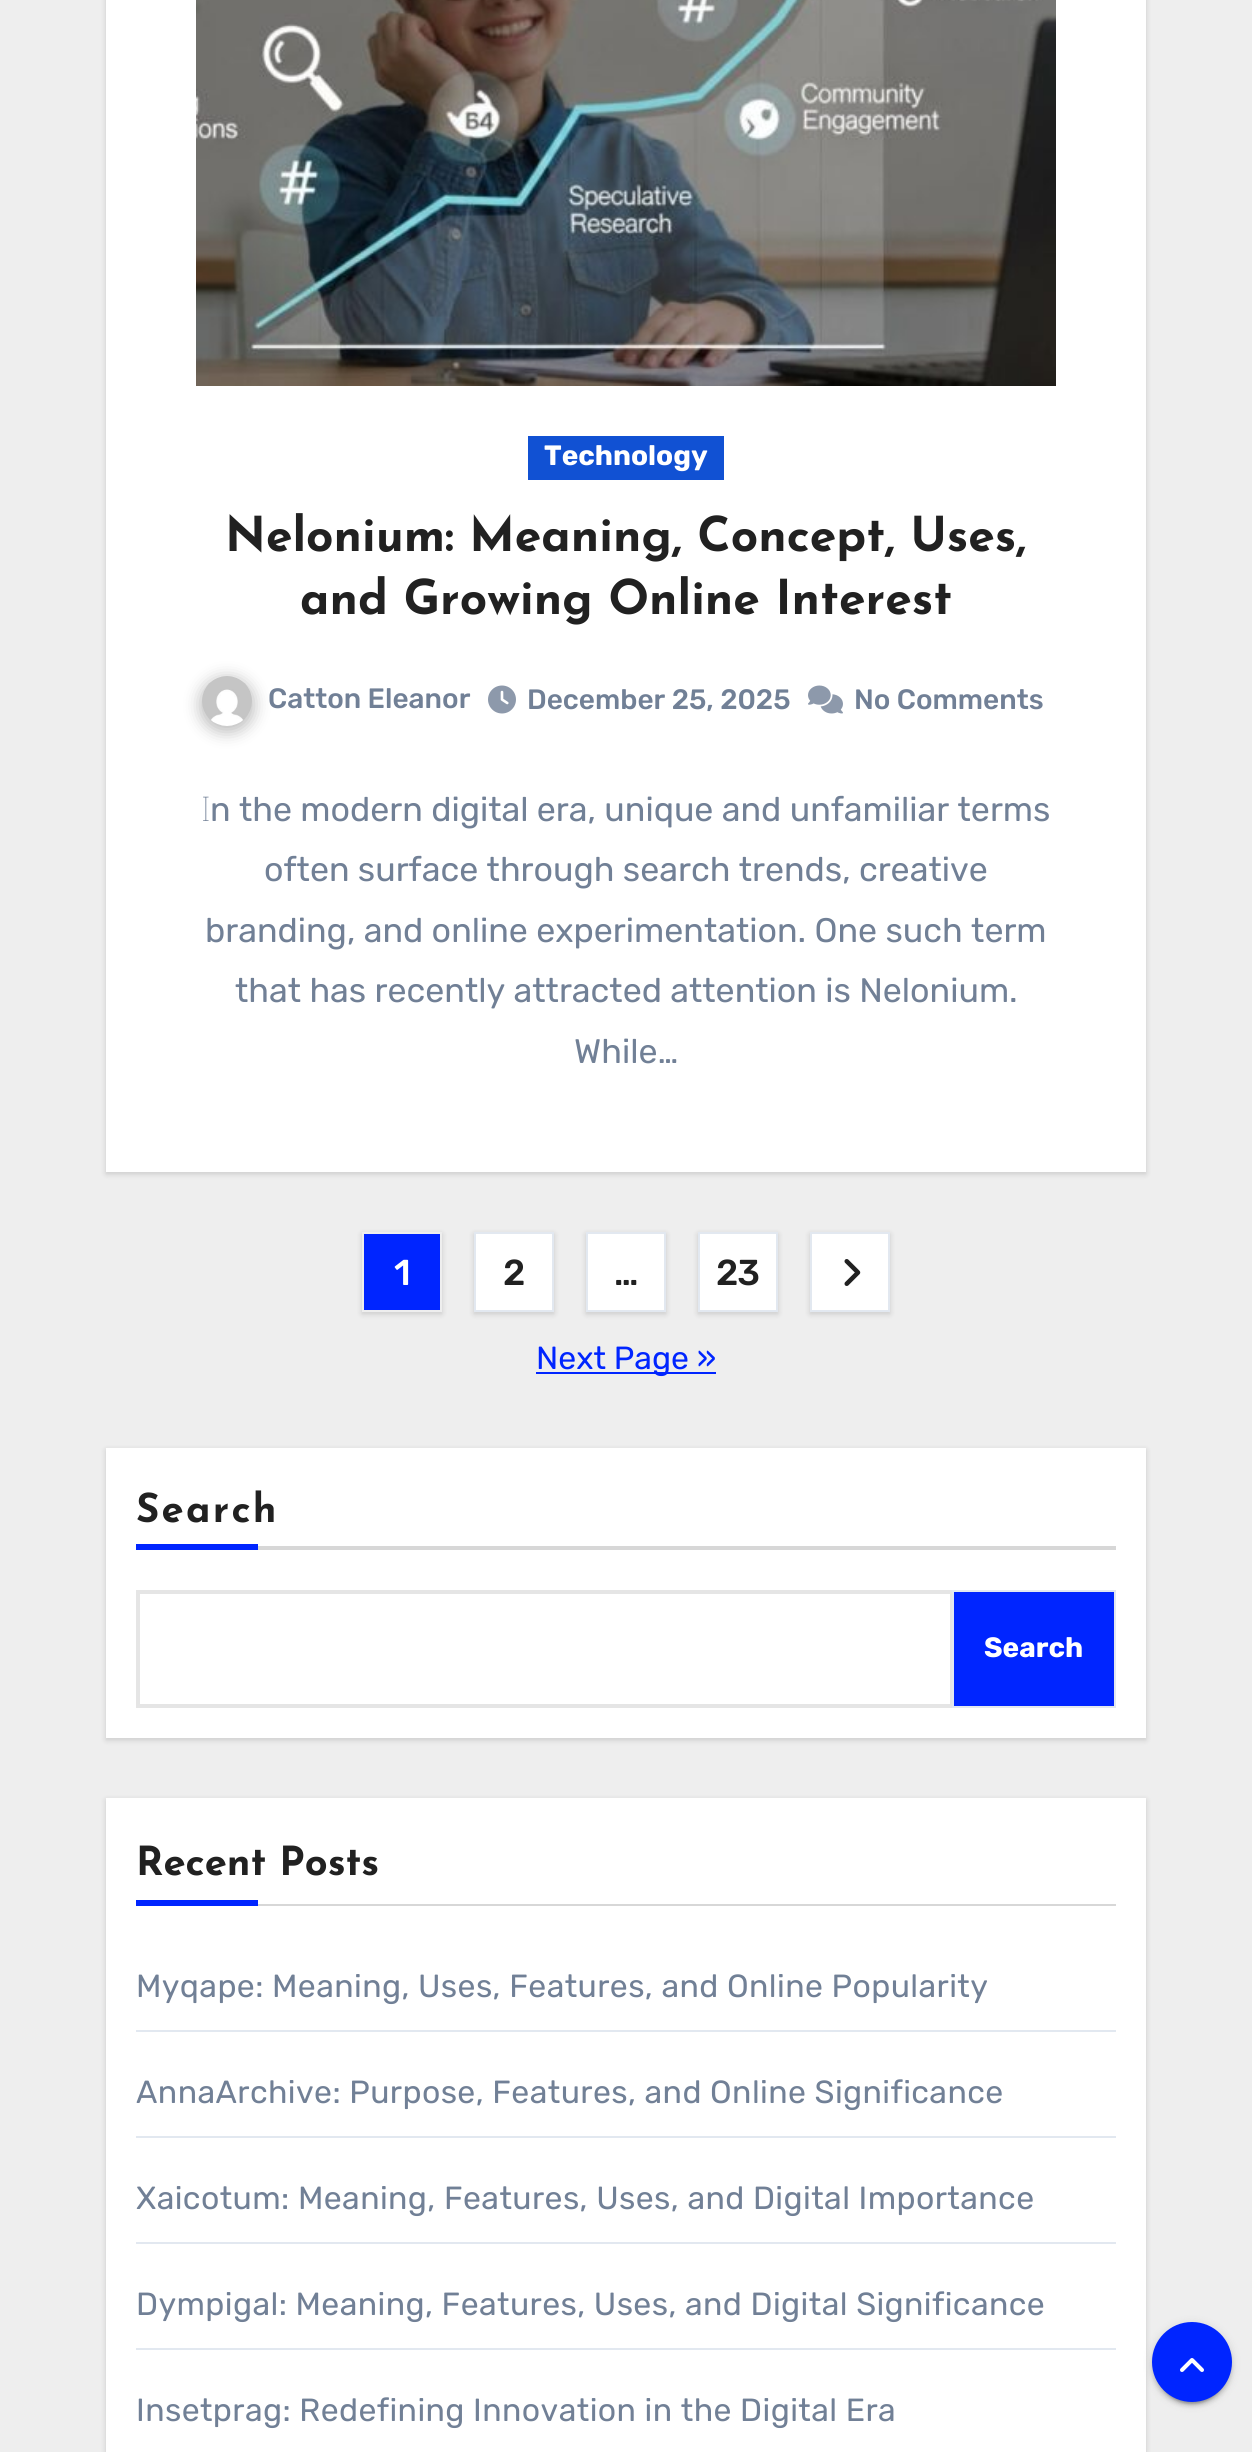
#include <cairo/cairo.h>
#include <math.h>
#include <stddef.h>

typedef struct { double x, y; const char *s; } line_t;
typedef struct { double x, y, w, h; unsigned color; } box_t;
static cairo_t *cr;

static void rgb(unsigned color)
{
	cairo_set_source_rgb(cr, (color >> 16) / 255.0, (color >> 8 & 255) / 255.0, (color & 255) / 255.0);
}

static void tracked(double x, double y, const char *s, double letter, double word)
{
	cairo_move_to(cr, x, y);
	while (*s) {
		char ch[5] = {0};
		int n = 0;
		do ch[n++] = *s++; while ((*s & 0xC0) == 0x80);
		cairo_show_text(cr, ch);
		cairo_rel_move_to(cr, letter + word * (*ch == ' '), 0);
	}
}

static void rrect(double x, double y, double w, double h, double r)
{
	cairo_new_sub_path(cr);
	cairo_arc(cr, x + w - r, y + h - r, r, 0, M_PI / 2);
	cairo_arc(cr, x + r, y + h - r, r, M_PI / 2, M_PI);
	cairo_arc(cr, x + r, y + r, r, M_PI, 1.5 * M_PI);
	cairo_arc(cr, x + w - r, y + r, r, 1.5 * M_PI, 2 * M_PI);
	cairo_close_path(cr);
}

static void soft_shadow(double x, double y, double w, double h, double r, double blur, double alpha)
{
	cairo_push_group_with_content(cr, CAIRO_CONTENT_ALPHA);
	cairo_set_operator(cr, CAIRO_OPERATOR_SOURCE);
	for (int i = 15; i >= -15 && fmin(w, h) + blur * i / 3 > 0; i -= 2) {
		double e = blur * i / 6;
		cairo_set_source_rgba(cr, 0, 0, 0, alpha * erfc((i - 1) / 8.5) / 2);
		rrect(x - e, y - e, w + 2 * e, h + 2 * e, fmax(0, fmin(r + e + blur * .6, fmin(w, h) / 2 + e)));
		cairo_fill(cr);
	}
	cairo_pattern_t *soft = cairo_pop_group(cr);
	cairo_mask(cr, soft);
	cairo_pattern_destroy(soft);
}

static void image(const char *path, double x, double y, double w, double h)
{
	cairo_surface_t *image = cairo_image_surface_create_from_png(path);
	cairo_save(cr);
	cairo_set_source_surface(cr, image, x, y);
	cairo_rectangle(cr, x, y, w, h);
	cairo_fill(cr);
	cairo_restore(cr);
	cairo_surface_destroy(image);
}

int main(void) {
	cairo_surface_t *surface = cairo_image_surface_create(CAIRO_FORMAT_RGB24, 1252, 2452);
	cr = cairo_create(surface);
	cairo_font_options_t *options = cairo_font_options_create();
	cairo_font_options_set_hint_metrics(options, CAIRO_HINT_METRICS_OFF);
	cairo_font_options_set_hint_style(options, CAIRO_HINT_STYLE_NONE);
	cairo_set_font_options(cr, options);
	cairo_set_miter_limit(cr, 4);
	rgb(0xeeeeee);
	cairo_paint(cr);
	rgb(0x000000);
	soft_shadow(106, -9, 1040, 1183, 0, 3, 0.15);
	rgb(0xffffff);
	cairo_rectangle(cr, 106, 0, 1040, 1172);
	cairo_fill(cr);
	image("img/1.png", 196, 0, 860, 386);
	rgb(0x1151d3);
	cairo_rectangle(cr, 528, 436, 196, 44);
	cairo_fill(cr);
	rgb(0x212121);
	soft_shadow(200, 678, 54, 54, 27, 8, 0.3);
	image("img/2.png", 202, 676, 50, 50);
	image("img/3.png", 488, 685, 28, 29);
	image("img/4.png", 808, 685, 35, 29);
	rgb(0x000000);
	soft_shadow(362, 1234, 80, 80, 0, 3, 0.15);
	rgb(0x0025ff);
	cairo_rectangle(cr, 363, 1233, 78, 78);
	cairo_fill_preserve(cr);
	rgb(0xeeeeee);
	cairo_stroke(cr);
	rgb(0x000000);
	soft_shadow(474, 1234, 80, 80, 0, 3, 0.15);
	rgb(0xffffff);
	cairo_rectangle(cr, 475, 1233, 78, 78);
	cairo_fill_preserve(cr);
	rgb(0xe2e8f0);
	cairo_stroke(cr);
	rgb(0x000000);
	soft_shadow(586, 1234, 80, 80, 0, 3, 0.15);
	rgb(0xffffff);
	cairo_rectangle(cr, 587, 1233, 78, 78);
	cairo_fill_preserve(cr);
	rgb(0xe2e8f0);
	cairo_stroke(cr);
	rgb(0x000000);
	soft_shadow(698, 1234, 80, 80, 0, 3, 0.15);
	rgb(0xffffff);
	cairo_rectangle(cr, 699, 1233, 78, 78);
	cairo_fill_preserve(cr);
	rgb(0xe2e8f0);
	cairo_stroke(cr);
	rgb(0x000000);
	soft_shadow(810, 1234, 80, 80, 0, 3, 0.15);
	rgb(0xffffff);
	cairo_rectangle(cr, 811, 1233, 78, 78);
	cairo_fill_preserve(cr);
	rgb(0xe2e8f0);
	cairo_stroke(cr);
	image("img/5.png", 844, 1259, 17, 27);
	rgb(0x0025ff);
	cairo_rectangle(cr, 536, 1372, 180, 2);
	cairo_fill(cr);
	rgb(0x000000);
	soft_shadow(106, 1450, 1040, 290, 0, 3, 0.15);
	{
		static const box_t items[] = {
			{106, 1448, 1040, 290, 0xffffff},
			{258, 1546, 858, 4, 0xd7d7d7},
			{136, 1544, 122, 6, 0x0025ff},
		};
		for (size_t i = 0; i < sizeof items / sizeof *items; i++) {
			rgb(items[i].color);
			cairo_rectangle(cr, items[i].x, items[i].y, items[i].w, items[i].h);
			cairo_fill(cr);
		}
	}
	cairo_rectangle(cr, 138, 1592, 814, 114);
	rgb(0xe5e5e5);
	cairo_set_line_width(cr, 4);
	cairo_stroke(cr);
	rgb(0x0025ff);
	cairo_rectangle(cr, 953, 1591, 162, 116);
	cairo_fill_preserve(cr);
	rgb(0xe2e8f0);
	cairo_set_line_width(cr, 2);
	cairo_stroke(cr);
	rgb(0x000000);
	soft_shadow(106, 1800, 1040, 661, 0, 3, 0.15);
	{
		static const box_t items[] = {
			{106, 1798, 1040, 654, 0xffffff},
			{258, 1904, 858, 2, 0xd7d7d7},
			{136, 1900, 122, 6, 0x0025ff},
			{136, 2030, 980, 2, 0xe2e8f0},
			{136, 2136, 980, 2, 0xe2e8f0},
			{136, 2242, 980, 2, 0xe2e8f0},
			{136, 2348, 980, 2, 0xe2e8f0},
		};
		for (size_t i = 0; i < sizeof items / sizeof *items; i++) {
			rgb(items[i].color);
			cairo_rectangle(cr, items[i].x, items[i].y, items[i].w, items[i].h);
			cairo_fill(cr);
		}
	}
	rgb(0x000000);
	soft_shadow(1152, 2324, 80, 80, 40, 5, 0.12);
	soft_shadow(1156, 2332, 72, 72, 36, 1, 0.2);
	soft_shadow(1152, 2326, 80, 80, 40, 2, 0.14);
	rgb(0x0025ff);
	cairo_arc(cr, 1192, 2362, 38, 0, 2 * M_PI);
	cairo_fill_preserve(cr);
	cairo_set_line_width(cr, 4);
	cairo_stroke(cr);
	image("img/6.png", 1180, 2358, 24, 14);
	cairo_select_font_face(cr, "Rubik", CAIRO_FONT_SLANT_NORMAL, CAIRO_FONT_WEIGHT_BOLD);
	cairo_set_font_size(cr, 28);
	rgb(0xffffff);
	cairo_move_to(cr, 544, 465);
	cairo_show_text(cr, "Technology");
	cairo_select_font_face(cr, "Josefin Sans", CAIRO_FONT_SLANT_NORMAL, CAIRO_FONT_WEIGHT_BOLD);
	cairo_set_font_size(cr, 48);
	rgb(0x212121);
	cairo_move_to(cr, 225, 551);
	cairo_show_text(cr, "Nelonium: Meaning, Concept, Uses,");
	cairo_move_to(cr, 300, 614);
	cairo_show_text(cr, "and Growing Online Interest");
	cairo_select_font_face(cr, "Rubik Medium", CAIRO_FONT_SLANT_NORMAL, CAIRO_FONT_WEIGHT_NORMAL);
	cairo_set_font_size(cr, 28);
	rgb(0x718096);
	{
		static const line_t items[] = {
			{268, 708, "Catton Eleanor"},
			{527, 709, "December 25, 2025"},
			{854, 709, "No Comments"},
		};
		for (size_t i = 0; i < sizeof items / sizeof *items; i++) {
			cairo_move_to(cr, items[i].x, items[i].y);
			cairo_show_text(cr, items[i].s);
		}
	}
	cairo_select_font_face(cr, "Noto Sans Thin", CAIRO_FONT_SLANT_NORMAL, CAIRO_FONT_WEIGHT_NORMAL);
	cairo_set_font_size(cr, 34);
	cairo_move_to(cr, 201, 821);
	cairo_show_text(cr, "I");
	cairo_select_font_face(cr, "Rubik Light", CAIRO_FONT_SLANT_NORMAL, CAIRO_FONT_WEIGHT_NORMAL);
	{
		static const line_t items[] = {
			{210, 821, "n the modern digital era, unique and unfamiliar terms"},
			{264, 881, "often surface through search trends, creative"},
			{205, 942, "branding, and online experimentation. One such term"},
			{235, 1002, "that has recently attracted attention is Nelonium."},
			{574, 1063, "While…"},
		};
		for (size_t i = 0; i < sizeof items / sizeof *items; i++) {
			cairo_move_to(cr, items[i].x, items[i].y);
			cairo_show_text(cr, items[i].s);
		}
	}
	cairo_select_font_face(cr, "Rubik Medium", CAIRO_FONT_SLANT_NORMAL, CAIRO_FONT_WEIGHT_NORMAL);
	cairo_set_font_size(cr, 36);
	rgb(0xffffff);
	cairo_move_to(cr, 394, 1285);
	cairo_show_text(cr, "1");
	rgb(0x212121);
	tracked(503, 1285, "2", -1, 0);
	cairo_move_to(cr, 614, 1285);
	cairo_show_text(cr, "…");
	tracked(716, 1285, "23", -1, 0);
	cairo_select_font_face(cr, "Rubik Light", CAIRO_FONT_SLANT_NORMAL, CAIRO_FONT_WEIGHT_NORMAL);
	cairo_set_font_size(cr, 32);
	rgb(0x0025ff);
	cairo_move_to(cr, 536, 1369);
	cairo_show_text(cr, "Next Page »");
	cairo_select_font_face(cr, "Josefin Sans", CAIRO_FONT_SLANT_NORMAL, CAIRO_FONT_WEIGHT_BOLD);
	cairo_set_font_size(cr, 40);
	rgb(0x212121);
	tracked(136, 1522, "Search", 2.25, 0);
	cairo_select_font_face(cr, "Rubik", CAIRO_FONT_SLANT_NORMAL, CAIRO_FONT_WEIGHT_BOLD);
	cairo_set_font_size(cr, 28);
	rgb(0xffffff);
	cairo_move_to(cr, 984, 1657);
	cairo_show_text(cr, "Search");
	cairo_select_font_face(cr, "Josefin Sans", CAIRO_FONT_SLANT_NORMAL, CAIRO_FONT_WEIGHT_BOLD);
	cairo_set_font_size(cr, 40);
	rgb(0x212121);
	cairo_move_to(cr, 136, 1875);
	cairo_show_text(cr, "Recent Posts");
	cairo_select_font_face(cr, "Rubik Light", CAIRO_FONT_SLANT_NORMAL, CAIRO_FONT_WEIGHT_NORMAL);
	cairo_set_font_size(cr, 32);
	rgb(0x718096);
	{
		static const line_t items[] = {
			{136, 1997, "Myqape: Meaning, Uses, Features, and Online Popularity"},
			{136, 2103, "AnnaArchive: Purpose, Features, and Online Significance"},
			{136, 2209, "Xaicotum: Meaning, Features, Uses, and Digital Importance"},
			{136, 2315, "Dympigal: Meaning, Features, Uses, and Digital Significance"},
			{136, 2421, "Insetprag: Redefining Innovation in the Digital Era"},
		};
		for (size_t i = 0; i < sizeof items / sizeof *items; i++) {
			tracked(items[i].x, items[i].y, items[i].s, 0.4, 0);
		}
	}
	cairo_surface_write_to_png(surface, "page.png");
	cairo_font_options_destroy(options);
	cairo_destroy(cr);
	cairo_surface_destroy(surface);
	return 0;
}
